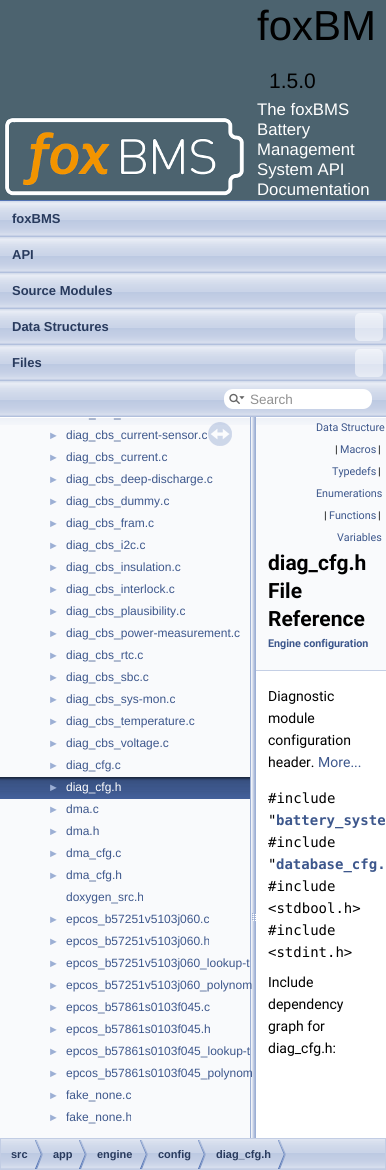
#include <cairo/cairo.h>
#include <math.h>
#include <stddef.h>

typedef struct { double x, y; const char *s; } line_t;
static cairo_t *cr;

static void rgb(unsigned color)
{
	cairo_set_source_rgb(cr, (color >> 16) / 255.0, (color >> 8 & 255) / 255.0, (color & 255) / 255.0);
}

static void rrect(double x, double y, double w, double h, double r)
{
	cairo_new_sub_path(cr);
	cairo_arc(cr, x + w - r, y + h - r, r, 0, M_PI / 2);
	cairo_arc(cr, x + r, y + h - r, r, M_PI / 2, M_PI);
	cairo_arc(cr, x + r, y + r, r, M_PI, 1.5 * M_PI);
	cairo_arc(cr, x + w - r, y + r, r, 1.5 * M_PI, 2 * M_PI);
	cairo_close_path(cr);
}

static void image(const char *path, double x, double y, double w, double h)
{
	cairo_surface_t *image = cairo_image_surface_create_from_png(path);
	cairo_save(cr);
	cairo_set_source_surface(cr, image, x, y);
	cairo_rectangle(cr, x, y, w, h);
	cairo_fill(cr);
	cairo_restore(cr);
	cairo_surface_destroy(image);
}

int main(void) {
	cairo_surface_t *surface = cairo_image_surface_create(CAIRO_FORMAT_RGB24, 386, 1170);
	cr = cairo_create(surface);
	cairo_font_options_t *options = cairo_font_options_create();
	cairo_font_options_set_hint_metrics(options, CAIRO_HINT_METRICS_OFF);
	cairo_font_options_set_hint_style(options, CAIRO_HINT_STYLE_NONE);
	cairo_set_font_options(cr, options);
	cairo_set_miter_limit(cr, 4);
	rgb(0xffffff);
	cairo_paint(cr);
	rgb(0x4c636f);
	cairo_rectangle(cr, 0, 0, 386, 200);
	cairo_fill(cr);
	rgb(0x5373b4);
	cairo_rectangle(cr, 0, 200, 386, 1);
	cairo_fill(cr);
	image("img/1.png", 4, 117, 240, 79);
	image("img/2.png", 0, 201, 386, 216);
	cairo_set_source_rgba(cr, 1, 1, 1, 0.5);
	rrect(355, 313, 28, 28, 5);
	cairo_fill(cr);
	rrect(355, 349, 28, 28, 5);
	cairo_fill(cr);
	rgb(0xffffff);
	rrect(224, 389, 148, 20, 9);
	cairo_fill(cr);
	image("img/3.png", 229, 393, 16, 11);
	rgb(0xf9fafc);
	cairo_rectangle(cr, 0, 425, 250, 713);
	cairo_fill(cr);
	image("img/4.png", 0, 417, 250, 8);
	image("img/5.png", 0, 777, 250, 22);
	image("img/6.png", 208, 422, 24, 24);
	image("img/7.png", 250, 417, 6, 721);
	cairo_rectangle(cr, 256, 425, 130, 245);
	cairo_fill(cr);
	image("img/8.png", 256, 417, 130, 8);
	rgb(0xc4cfe5);
	cairo_rectangle(cr, 256, 670, 130, 1);
	cairo_fill(cr);
	image("img/9.png", 1, 1139, 384, 30);
	cairo_rectangle(cr, 0.5, 1138.5, 385, 31);
	rgb(0xc2cde4);
	cairo_set_line_width(cr, 1);
	cairo_stroke(cr);
	image("img/10.png", 35, 1140, 8, 29);
	image("img/10.png", 79, 1140, 8, 29);
	image("img/10.png", 140, 1140, 8, 29);
	image("img/10.png", 198, 1140, 8, 29);
	image("img/10.png", 278, 1140, 8, 29);
	cairo_select_font_face(cr, "Liberation Sans", CAIRO_FONT_SLANT_NORMAL, CAIRO_FONT_WEIGHT_NORMAL);
	cairo_set_font_size(cr, 42);
	rgb(0x000000);
	cairo_move_to(cr, 257, 40);
	cairo_show_text(cr, "foxBM");
	cairo_set_font_size(cr, 21);
	cairo_move_to(cr, 269, 88);
	cairo_show_text(cr, "1.5.0");
	cairo_set_font_size(cr, 16.75);
	rgb(0xffffff);
	{
		static const line_t items[] = {
			{257, 115, "The foxBMS"},
			{257, 135, "Battery"},
			{257, 155, "Management"},
			{257, 175, "System API"},
			{257, 195, "Documentation"},
		};
		for (size_t i = 0; i < sizeof items / sizeof *items; i++) {
			cairo_move_to(cr, items[i].x, items[i].y);
			cairo_show_text(cr, items[i].s);
		}
	}
	cairo_select_font_face(cr, "Liberation Sans", CAIRO_FONT_SLANT_NORMAL, CAIRO_FONT_WEIGHT_BOLD);
	cairo_set_font_size(cr, 13);
	rgb(0x283a5d);
	{
		static const line_t items[] = {
			{12, 223, "foxBMS"},
			{12, 259, "API"},
			{12, 295, "Source Modules"},
			{12, 331, "Data Structures"},
			{12, 367, "Files"},
		};
		for (size_t i = 0; i < sizeof items / sizeof *items; i++) {
			cairo_move_to(cr, items[i].x, items[i].y);
			cairo_show_text(cr, items[i].s);
		}
	}
	cairo_select_font_face(cr, "Liberation Sans", CAIRO_FONT_SLANT_NORMAL, CAIRO_FONT_WEIGHT_NORMAL);
	cairo_set_font_size(cr, 13.5);
	rgb(0x909090);
	cairo_move_to(cr, 250, 404);
	cairo_show_text(cr, "Search");
	cairo_set_font_size(cr, 12);
	rgb(0x3d578c);
	cairo_move_to(cr, 89, 417);
	cairo_show_text(cr, "_");
	cairo_move_to(cr, 114, 417);
	cairo_show_text(cr, "_");
	cairo_set_font_size(cr, 11);
	rgb(0x9cafd4);
	cairo_move_to(cr, 48, 439);
	cairo_show_text(cr, "►");
	cairo_set_font_size(cr, 12);
	rgb(0x3d578c);
	cairo_move_to(cr, 66, 439);
	cairo_show_text(cr, "diag_cbs_current-sensor.c");
	cairo_set_font_size(cr, 11);
	rgb(0x9cafd4);
	cairo_move_to(cr, 48, 461);
	cairo_show_text(cr, "►");
	cairo_set_font_size(cr, 12);
	rgb(0x3d578c);
	cairo_move_to(cr, 66, 461);
	cairo_show_text(cr, "diag_cbs_current.c");
	cairo_set_font_size(cr, 11);
	rgb(0x9cafd4);
	cairo_move_to(cr, 48, 483);
	cairo_show_text(cr, "►");
	cairo_set_font_size(cr, 12);
	rgb(0x3d578c);
	cairo_move_to(cr, 66, 483);
	cairo_show_text(cr, "diag_cbs_deep-discharge.c");
	cairo_set_font_size(cr, 11);
	rgb(0x9cafd4);
	cairo_move_to(cr, 48, 505);
	cairo_show_text(cr, "►");
	cairo_set_font_size(cr, 12);
	rgb(0x3d578c);
	cairo_move_to(cr, 66, 505);
	cairo_show_text(cr, "diag_cbs_dummy.c");
	cairo_set_font_size(cr, 11);
	rgb(0x9cafd4);
	cairo_move_to(cr, 48, 527);
	cairo_show_text(cr, "►");
	cairo_set_font_size(cr, 12);
	rgb(0x3d578c);
	cairo_move_to(cr, 66, 527);
	cairo_show_text(cr, "diag_cbs_fram.c");
	cairo_set_font_size(cr, 11);
	rgb(0x9cafd4);
	cairo_move_to(cr, 48, 549);
	cairo_show_text(cr, "►");
	cairo_set_font_size(cr, 12);
	rgb(0x3d578c);
	cairo_move_to(cr, 66, 549);
	cairo_show_text(cr, "diag_cbs_i2c.c");
	cairo_set_font_size(cr, 11);
	rgb(0x9cafd4);
	cairo_move_to(cr, 48, 571);
	cairo_show_text(cr, "►");
	cairo_set_font_size(cr, 12);
	rgb(0x3d578c);
	cairo_move_to(cr, 66, 571);
	cairo_show_text(cr, "diag_cbs_insulation.c");
	cairo_set_font_size(cr, 11);
	rgb(0x9cafd4);
	cairo_move_to(cr, 48, 593);
	cairo_show_text(cr, "►");
	cairo_set_font_size(cr, 12);
	rgb(0x3d578c);
	cairo_move_to(cr, 66, 593);
	cairo_show_text(cr, "diag_cbs_interlock.c");
	cairo_set_font_size(cr, 11);
	rgb(0x9cafd4);
	cairo_move_to(cr, 48, 615);
	cairo_show_text(cr, "►");
	cairo_set_font_size(cr, 12);
	rgb(0x3d578c);
	cairo_move_to(cr, 66, 615);
	cairo_show_text(cr, "diag_cbs_plausibility.c");
	cairo_set_font_size(cr, 11);
	rgb(0x9cafd4);
	cairo_move_to(cr, 48, 637);
	cairo_show_text(cr, "►");
	cairo_set_font_size(cr, 12);
	rgb(0x3d578c);
	cairo_move_to(cr, 66, 637);
	cairo_show_text(cr, "diag_cbs_power-measurement.c");
	cairo_set_font_size(cr, 11);
	rgb(0x9cafd4);
	cairo_move_to(cr, 48, 659);
	cairo_show_text(cr, "►");
	cairo_set_font_size(cr, 12);
	rgb(0x3d578c);
	cairo_move_to(cr, 66, 659);
	cairo_show_text(cr, "diag_cbs_rtc.c");
	cairo_set_font_size(cr, 11);
	rgb(0x9cafd4);
	cairo_move_to(cr, 48, 681);
	cairo_show_text(cr, "►");
	cairo_set_font_size(cr, 12);
	rgb(0x3d578c);
	cairo_move_to(cr, 66, 681);
	cairo_show_text(cr, "diag_cbs_sbc.c");
	cairo_set_font_size(cr, 11);
	rgb(0x9cafd4);
	cairo_move_to(cr, 48, 703);
	cairo_show_text(cr, "►");
	cairo_set_font_size(cr, 12);
	rgb(0x3d578c);
	cairo_move_to(cr, 66, 703);
	cairo_show_text(cr, "diag_cbs_sys-mon.c");
	cairo_set_font_size(cr, 11);
	rgb(0x9cafd4);
	cairo_move_to(cr, 48, 725);
	cairo_show_text(cr, "►");
	cairo_set_font_size(cr, 12);
	rgb(0x3d578c);
	cairo_move_to(cr, 66, 725);
	cairo_show_text(cr, "diag_cbs_temperature.c");
	cairo_set_font_size(cr, 11);
	rgb(0x9cafd4);
	cairo_move_to(cr, 48, 747);
	cairo_show_text(cr, "►");
	cairo_set_font_size(cr, 12);
	rgb(0x3d578c);
	cairo_move_to(cr, 66, 747);
	cairo_show_text(cr, "diag_cbs_voltage.c");
	cairo_set_font_size(cr, 11);
	rgb(0x9cafd4);
	cairo_move_to(cr, 48, 769);
	cairo_show_text(cr, "►");
	cairo_set_font_size(cr, 12);
	rgb(0x3d578c);
	cairo_move_to(cr, 66, 769);
	cairo_show_text(cr, "diag_cfg.c");
	cairo_set_font_size(cr, 11);
	rgb(0x9cafd4);
	cairo_move_to(cr, 48, 791);
	cairo_show_text(cr, "►");
	cairo_set_font_size(cr, 12);
	rgb(0xffffff);
	cairo_move_to(cr, 66, 791);
	cairo_show_text(cr, "diag_cfg.h");
	cairo_set_font_size(cr, 11);
	rgb(0x9cafd4);
	cairo_move_to(cr, 48, 813);
	cairo_show_text(cr, "►");
	cairo_set_font_size(cr, 12);
	rgb(0x3d578c);
	cairo_move_to(cr, 66, 813);
	cairo_show_text(cr, "dma.c");
	cairo_set_font_size(cr, 11);
	rgb(0x9cafd4);
	cairo_move_to(cr, 48, 835);
	cairo_show_text(cr, "►");
	cairo_set_font_size(cr, 12);
	rgb(0x3d578c);
	cairo_move_to(cr, 66, 835);
	cairo_show_text(cr, "dma.h");
	cairo_set_font_size(cr, 11);
	rgb(0x9cafd4);
	cairo_move_to(cr, 48, 857);
	cairo_show_text(cr, "►");
	cairo_set_font_size(cr, 12);
	rgb(0x3d578c);
	cairo_move_to(cr, 66, 857);
	cairo_show_text(cr, "dma_cfg.c");
	cairo_set_font_size(cr, 11);
	rgb(0x9cafd4);
	cairo_move_to(cr, 48, 879);
	cairo_show_text(cr, "►");
	cairo_set_font_size(cr, 12);
	rgb(0x3d578c);
	cairo_move_to(cr, 66, 879);
	cairo_show_text(cr, "dma_cfg.h");
	cairo_move_to(cr, 66, 901);
	cairo_show_text(cr, "doxygen_src.h");
	cairo_set_font_size(cr, 11);
	rgb(0x9cafd4);
	cairo_move_to(cr, 48, 923);
	cairo_show_text(cr, "►");
	cairo_set_font_size(cr, 12);
	rgb(0x3d578c);
	cairo_move_to(cr, 66, 923);
	cairo_show_text(cr, "epcos_b57251v5103j060.c");
	cairo_set_font_size(cr, 11);
	rgb(0x9cafd4);
	cairo_move_to(cr, 48, 945);
	cairo_show_text(cr, "►");
	cairo_set_font_size(cr, 12);
	rgb(0x3d578c);
	cairo_move_to(cr, 66, 945);
	cairo_show_text(cr, "epcos_b57251v5103j060.h");
	cairo_set_font_size(cr, 11);
	rgb(0x9cafd4);
	cairo_move_to(cr, 48, 967);
	cairo_show_text(cr, "►");
	cairo_set_font_size(cr, 12);
	rgb(0x3d578c);
	cairo_move_to(cr, 66, 967);
	cairo_show_text(cr, "epcos_b57251v5103j060_lookup-t");
	cairo_set_font_size(cr, 11);
	rgb(0x9cafd4);
	cairo_move_to(cr, 48, 989);
	cairo_show_text(cr, "►");
	cairo_set_font_size(cr, 12);
	rgb(0x3d578c);
	cairo_move_to(cr, 66, 989);
	cairo_show_text(cr, "epcos_b57251v5103j060_polynom");
	cairo_set_font_size(cr, 11);
	rgb(0x9cafd4);
	cairo_move_to(cr, 48, 1011);
	cairo_show_text(cr, "►");
	cairo_set_font_size(cr, 12);
	rgb(0x3d578c);
	cairo_move_to(cr, 66, 1011);
	cairo_show_text(cr, "epcos_b57861s0103f045.c");
	cairo_set_font_size(cr, 11);
	rgb(0x9cafd4);
	cairo_move_to(cr, 48, 1033);
	cairo_show_text(cr, "►");
	cairo_set_font_size(cr, 12);
	rgb(0x3d578c);
	cairo_move_to(cr, 66, 1033);
	cairo_show_text(cr, "epcos_b57861s0103f045.h");
	cairo_set_font_size(cr, 11);
	rgb(0x9cafd4);
	cairo_move_to(cr, 48, 1055);
	cairo_show_text(cr, "►");
	cairo_set_font_size(cr, 12);
	rgb(0x3d578c);
	cairo_move_to(cr, 66, 1055);
	cairo_show_text(cr, "epcos_b57861s0103f045_lookup-t");
	cairo_set_font_size(cr, 11);
	rgb(0x9cafd4);
	cairo_move_to(cr, 48, 1077);
	cairo_show_text(cr, "►");
	cairo_set_font_size(cr, 12);
	rgb(0x3d578c);
	cairo_move_to(cr, 66, 1077);
	cairo_show_text(cr, "epcos_b57861s0103f045_polynom");
	cairo_set_font_size(cr, 11);
	rgb(0x9cafd4);
	cairo_move_to(cr, 48, 1099);
	cairo_show_text(cr, "►");
	cairo_set_font_size(cr, 12);
	rgb(0x3d578c);
	cairo_move_to(cr, 66, 1099);
	cairo_show_text(cr, "fake_none.c");
	cairo_set_font_size(cr, 11);
	rgb(0x9cafd4);
	cairo_move_to(cr, 48, 1121);
	cairo_show_text(cr, "►");
	cairo_set_font_size(cr, 12);
	rgb(0x3d578c);
	cairo_move_to(cr, 66, 1121);
	cairo_show_text(cr, "fake_none.h");
	cairo_select_font_face(cr, "Roboto", CAIRO_FONT_SLANT_NORMAL, CAIRO_FONT_WEIGHT_NORMAL);
	cairo_set_font_size(cr, 10.75);
	cairo_move_to(cr, 316, 431);
	cairo_show_text(cr, "Data Structure");
	rgb(0x000000);
	cairo_move_to(cr, 335, 453);
	cairo_show_text(cr, "|");
	rgb(0x3d578c);
	cairo_move_to(cr, 340, 453);
	cairo_show_text(cr, "Macros");
	rgb(0x000000);
	cairo_move_to(cr, 378, 453);
	cairo_show_text(cr, "|");
	rgb(0x3d578c);
	cairo_move_to(cr, 332, 475);
	cairo_show_text(cr, "Typedefs");
	rgb(0x000000);
	cairo_move_to(cr, 378, 475);
	cairo_show_text(cr, "|");
	rgb(0x3d578c);
	cairo_move_to(cr, 316, 497);
	cairo_show_text(cr, "Enumerations");
	rgb(0x000000);
	cairo_move_to(cr, 324, 519);
	cairo_show_text(cr, "|");
	rgb(0x3d578c);
	cairo_move_to(cr, 329, 519);
	cairo_show_text(cr, "Functions");
	rgb(0x000000);
	cairo_move_to(cr, 378, 519);
	cairo_show_text(cr, "|");
	rgb(0x3d578c);
	cairo_move_to(cr, 337, 541);
	cairo_show_text(cr, "Variables");
	cairo_select_font_face(cr, "Roboto", CAIRO_FONT_SLANT_NORMAL, CAIRO_FONT_WEIGHT_BOLD);
	cairo_set_font_size(cr, 21);
	rgb(0x000000);
	{
		static const line_t items[] = {
			{268, 570, "diag_cfg.h"},
			{268, 598, "File"},
			{268, 626, "Reference"},
		};
		for (size_t i = 0; i < sizeof items / sizeof *items; i++) {
			cairo_move_to(cr, items[i].x, items[i].y);
			cairo_show_text(cr, items[i].s);
		}
	}
	cairo_set_font_size(cr, 10.75);
	rgb(0x3d578c);
	cairo_move_to(cr, 268, 647);
	cairo_show_text(cr, "Engine configuration");
	cairo_select_font_face(cr, "Roboto", CAIRO_FONT_SLANT_NORMAL, CAIRO_FONT_WEIGHT_NORMAL);
	cairo_set_font_size(cr, 14);
	rgb(0x000000);
	{
		static const line_t items[] = {
			{268, 701, "Diagnostic"},
			{268, 723, "module"},
			{268, 745, "configuration"},
			{268, 767, "header."},
		};
		for (size_t i = 0; i < sizeof items / sizeof *items; i++) {
			cairo_move_to(cr, items[i].x, items[i].y);
			cairo_show_text(cr, items[i].s);
		}
	}
	rgb(0x3d578c);
	cairo_move_to(cr, 318, 767);
	cairo_show_text(cr, "More...");
	cairo_select_font_face(cr, "DejaVu Sans Mono", CAIRO_FONT_SLANT_NORMAL, CAIRO_FONT_WEIGHT_NORMAL);
	rgb(0x000000);
	cairo_move_to(cr, 268, 803);
	cairo_show_text(cr, "#include");
	cairo_move_to(cr, 268, 825);
	cairo_show_text(cr, "\"");
	cairo_select_font_face(cr, "DejaVu Sans Mono", CAIRO_FONT_SLANT_NORMAL, CAIRO_FONT_WEIGHT_BOLD);
	rgb(0x3d578c);
	cairo_move_to(cr, 276, 825);
	cairo_show_text(cr, "battery_syste");
	cairo_select_font_face(cr, "DejaVu Sans Mono", CAIRO_FONT_SLANT_NORMAL, CAIRO_FONT_WEIGHT_NORMAL);
	rgb(0x000000);
	cairo_move_to(cr, 268, 847);
	cairo_show_text(cr, "#include");
	cairo_move_to(cr, 268, 869);
	cairo_show_text(cr, "\"");
	cairo_select_font_face(cr, "DejaVu Sans Mono", CAIRO_FONT_SLANT_NORMAL, CAIRO_FONT_WEIGHT_BOLD);
	rgb(0x3d578c);
	cairo_move_to(cr, 276, 869);
	cairo_show_text(cr, "database_cfg.");
	cairo_select_font_face(cr, "DejaVu Sans Mono", CAIRO_FONT_SLANT_NORMAL, CAIRO_FONT_WEIGHT_NORMAL);
	rgb(0x000000);
	{
		static const line_t items[] = {
			{268, 891, "#include"},
			{268, 913, "<stdbool.h>"},
			{268, 935, "#include"},
			{268, 957, "<stdint.h>"},
		};
		for (size_t i = 0; i < sizeof items / sizeof *items; i++) {
			cairo_move_to(cr, items[i].x, items[i].y);
			cairo_show_text(cr, items[i].s);
		}
	}
	cairo_select_font_face(cr, "Roboto", CAIRO_FONT_SLANT_NORMAL, CAIRO_FONT_WEIGHT_NORMAL);
	{
		static const line_t items[] = {
			{268, 987, "Include"},
			{268, 1009, "dependency"},
			{268, 1031, "graph for"},
			{268, 1053, "diag_cfg.h:"},
		};
		for (size_t i = 0; i < sizeof items / sizeof *items; i++) {
			cairo_move_to(cr, items[i].x, items[i].y);
			cairo_show_text(cr, items[i].s);
		}
	}
	cairo_select_font_face(cr, "Liberation Sans", CAIRO_FONT_SLANT_NORMAL, CAIRO_FONT_WEIGHT_BOLD);
	cairo_set_font_size(cr, 11);
	rgb(0x283a5d);
	{
		static const line_t items[] = {
			{11, 1158, "src"},
			{53, 1158, "app"},
			{97, 1158, "engine"},
			{158, 1158, "config"},
			{216, 1158, "diag_cfg.h"},
		};
		for (size_t i = 0; i < sizeof items / sizeof *items; i++) {
			cairo_move_to(cr, items[i].x, items[i].y);
			cairo_show_text(cr, items[i].s);
		}
	}
	cairo_surface_write_to_png(surface, "page.png");
	cairo_font_options_destroy(options);
	cairo_destroy(cr);
	cairo_surface_destroy(surface);
	return 0;
}
